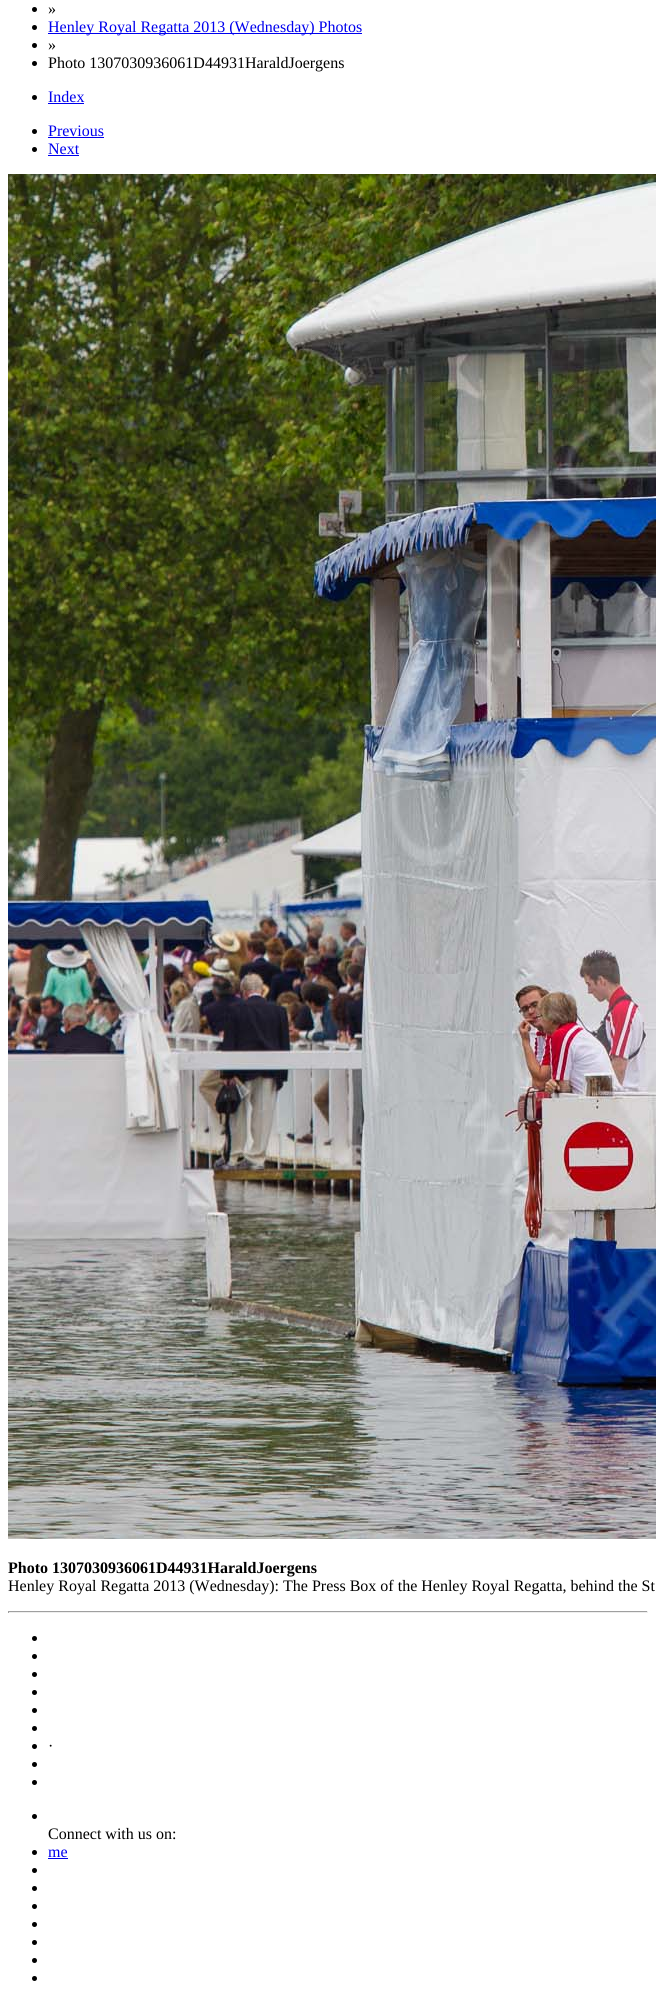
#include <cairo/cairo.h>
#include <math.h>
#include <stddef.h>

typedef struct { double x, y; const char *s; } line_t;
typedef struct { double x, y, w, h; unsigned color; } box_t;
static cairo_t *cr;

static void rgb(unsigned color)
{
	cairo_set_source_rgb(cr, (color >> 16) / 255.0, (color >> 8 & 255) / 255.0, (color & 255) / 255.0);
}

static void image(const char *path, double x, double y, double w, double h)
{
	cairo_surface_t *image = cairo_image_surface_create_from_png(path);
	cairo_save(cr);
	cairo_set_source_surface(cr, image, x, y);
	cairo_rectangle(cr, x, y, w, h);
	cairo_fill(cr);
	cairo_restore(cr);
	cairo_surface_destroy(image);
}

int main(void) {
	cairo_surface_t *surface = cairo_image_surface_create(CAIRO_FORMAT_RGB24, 656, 1995);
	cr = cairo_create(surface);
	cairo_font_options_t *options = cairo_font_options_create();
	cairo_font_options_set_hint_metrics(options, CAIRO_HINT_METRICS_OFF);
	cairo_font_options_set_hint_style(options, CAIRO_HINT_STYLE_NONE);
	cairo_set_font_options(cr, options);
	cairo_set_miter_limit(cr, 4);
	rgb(0xffffff);
	cairo_paint(cr);
	rgb(0x000000);
	cairo_arc(cr, 34.5, 9.5, 2.5, 0, 2 * M_PI);
	cairo_fill(cr);
	cairo_arc(cr, 34.5, 27.5, 2.5, 0, 2 * M_PI);
	cairo_fill(cr);
	rgb(0x0000ee);
	cairo_rectangle(cr, 48, 33, 314, 1);
	cairo_fill(cr);
	rgb(0x000000);
	cairo_arc(cr, 34.5, 45.5, 2.5, 0, 2 * M_PI);
	cairo_fill(cr);
	cairo_arc(cr, 34.5, 63.5, 2.5, 0, 2 * M_PI);
	cairo_fill(cr);
	cairo_arc(cr, 34.5, 97.5, 2.5, 0, 2 * M_PI);
	cairo_fill(cr);
	rgb(0x0000ee);
	cairo_rectangle(cr, 48, 103, 36, 1);
	cairo_fill(cr);
	rgb(0x000000);
	cairo_arc(cr, 34.5, 131.5, 2.5, 0, 2 * M_PI);
	cairo_fill(cr);
	rgb(0x0000ee);
	cairo_rectangle(cr, 48, 137, 56, 1);
	cairo_fill(cr);
	rgb(0x000000);
	cairo_arc(cr, 34.5, 149.5, 2.5, 0, 2 * M_PI);
	cairo_fill(cr);
	rgb(0x0000ee);
	cairo_rectangle(cr, 48, 155, 31, 1);
	cairo_fill(cr);
	image("img/1.png", 8, 174, 648, 1365);
	{
		static const box_t items[] = {
			{8, 1611, 640, 1, 0x9f9f9f},
			{647, 1611, 1, 2, 0xeeeeee},
			{8, 1612, 640, 1, 0xeeeeee},
			{8, 1611, 1, 2, 0x9f9f9f},
		};
		for (size_t i = 0; i < sizeof items / sizeof *items; i++) {
			rgb(items[i].color);
			cairo_rectangle(cr, items[i].x, items[i].y, items[i].w, items[i].h);
			cairo_fill(cr);
		}
	}
	rgb(0x000000);
	cairo_arc(cr, 34.5, 1638.5, 2.5, 0, 2 * M_PI);
	cairo_fill(cr);
	cairo_arc(cr, 34.5, 1656.5, 2.5, 0, 2 * M_PI);
	cairo_fill(cr);
	cairo_arc(cr, 34.5, 1674.5, 2.5, 0, 2 * M_PI);
	cairo_fill(cr);
	cairo_arc(cr, 34.5, 1692.5, 2.5, 0, 2 * M_PI);
	cairo_fill(cr);
	cairo_arc(cr, 34.5, 1710.5, 2.5, 0, 2 * M_PI);
	cairo_fill(cr);
	cairo_arc(cr, 34.5, 1728.5, 2.5, 0, 2 * M_PI);
	cairo_fill(cr);
	cairo_arc(cr, 34.5, 1746.5, 2.5, 0, 2 * M_PI);
	cairo_fill(cr);
	cairo_arc(cr, 34.5, 1764.5, 2.5, 0, 2 * M_PI);
	cairo_fill(cr);
	cairo_arc(cr, 34.5, 1782.5, 2.5, 0, 2 * M_PI);
	cairo_fill(cr);
	cairo_arc(cr, 34.5, 1816.5, 2.5, 0, 2 * M_PI);
	cairo_fill(cr);
	cairo_arc(cr, 34.5, 1852.5, 2.5, 0, 2 * M_PI);
	cairo_fill(cr);
	rgb(0x0000ee);
	cairo_rectangle(cr, 48, 1858, 20, 1);
	cairo_fill(cr);
	rgb(0x000000);
	cairo_arc(cr, 34.5, 1870.5, 2.5, 0, 2 * M_PI);
	cairo_fill(cr);
	cairo_arc(cr, 34.5, 1888.5, 2.5, 0, 2 * M_PI);
	cairo_fill(cr);
	cairo_arc(cr, 34.5, 1906.5, 2.5, 0, 2 * M_PI);
	cairo_fill(cr);
	cairo_arc(cr, 34.5, 1924.5, 2.5, 0, 2 * M_PI);
	cairo_fill(cr);
	cairo_arc(cr, 34.5, 1942.5, 2.5, 0, 2 * M_PI);
	cairo_fill(cr);
	cairo_arc(cr, 34.5, 1960.5, 2.5, 0, 2 * M_PI);
	cairo_fill(cr);
	cairo_arc(cr, 34.5, 1978.5, 2.5, 0, 2 * M_PI);
	cairo_fill(cr);
	cairo_select_font_face(cr, "Liberation Serif", CAIRO_FONT_SLANT_NORMAL, CAIRO_FONT_WEIGHT_NORMAL);
	cairo_set_font_size(cr, 16);
	cairo_move_to(cr, 48, 14);
	cairo_show_text(cr, "»");
	rgb(0x0000ee);
	cairo_move_to(cr, 48, 32);
	cairo_show_text(cr, "Henley Royal Regatta 2013 (Wednesday) Photos");
	rgb(0x000000);
	cairo_move_to(cr, 48, 50);
	cairo_show_text(cr, "»");
	cairo_move_to(cr, 48, 68);
	cairo_show_text(cr, "Photo 1307030936061D44931HaraldJoergens");
	rgb(0x0000ee);
	{
		static const line_t items[] = {
			{48, 102, "Index"},
			{48, 136, "Previous"},
			{48, 154, "Next"},
		};
		for (size_t i = 0; i < sizeof items / sizeof *items; i++) {
			cairo_move_to(cr, items[i].x, items[i].y);
			cairo_show_text(cr, items[i].s);
		}
	}
	cairo_select_font_face(cr, "Liberation Serif", CAIRO_FONT_SLANT_NORMAL, CAIRO_FONT_WEIGHT_BOLD);
	rgb(0x000000);
	cairo_move_to(cr, 8, 1573);
	cairo_show_text(cr, "Photo 1307030936061D44931HaraldJoergens");
	cairo_select_font_face(cr, "Liberation Serif", CAIRO_FONT_SLANT_NORMAL, CAIRO_FONT_WEIGHT_NORMAL);
	{
		static const line_t items[] = {
			{8, 1591, "Henley Royal Regatta 2013 (Wednesday): The Press Box of the Henley Royal Regatta, behind the St"},
			{48, 1751, "·"},
			{48, 1839, "Connect with us on:"},
		};
		for (size_t i = 0; i < sizeof items / sizeof *items; i++) {
			cairo_move_to(cr, items[i].x, items[i].y);
			cairo_show_text(cr, items[i].s);
		}
	}
	rgb(0x0000ee);
	cairo_move_to(cr, 48, 1857);
	cairo_show_text(cr, "me");
	cairo_surface_write_to_png(surface, "page.png");
	cairo_font_options_destroy(options);
	cairo_destroy(cr);
	cairo_surface_destroy(surface);
	return 0;
}
